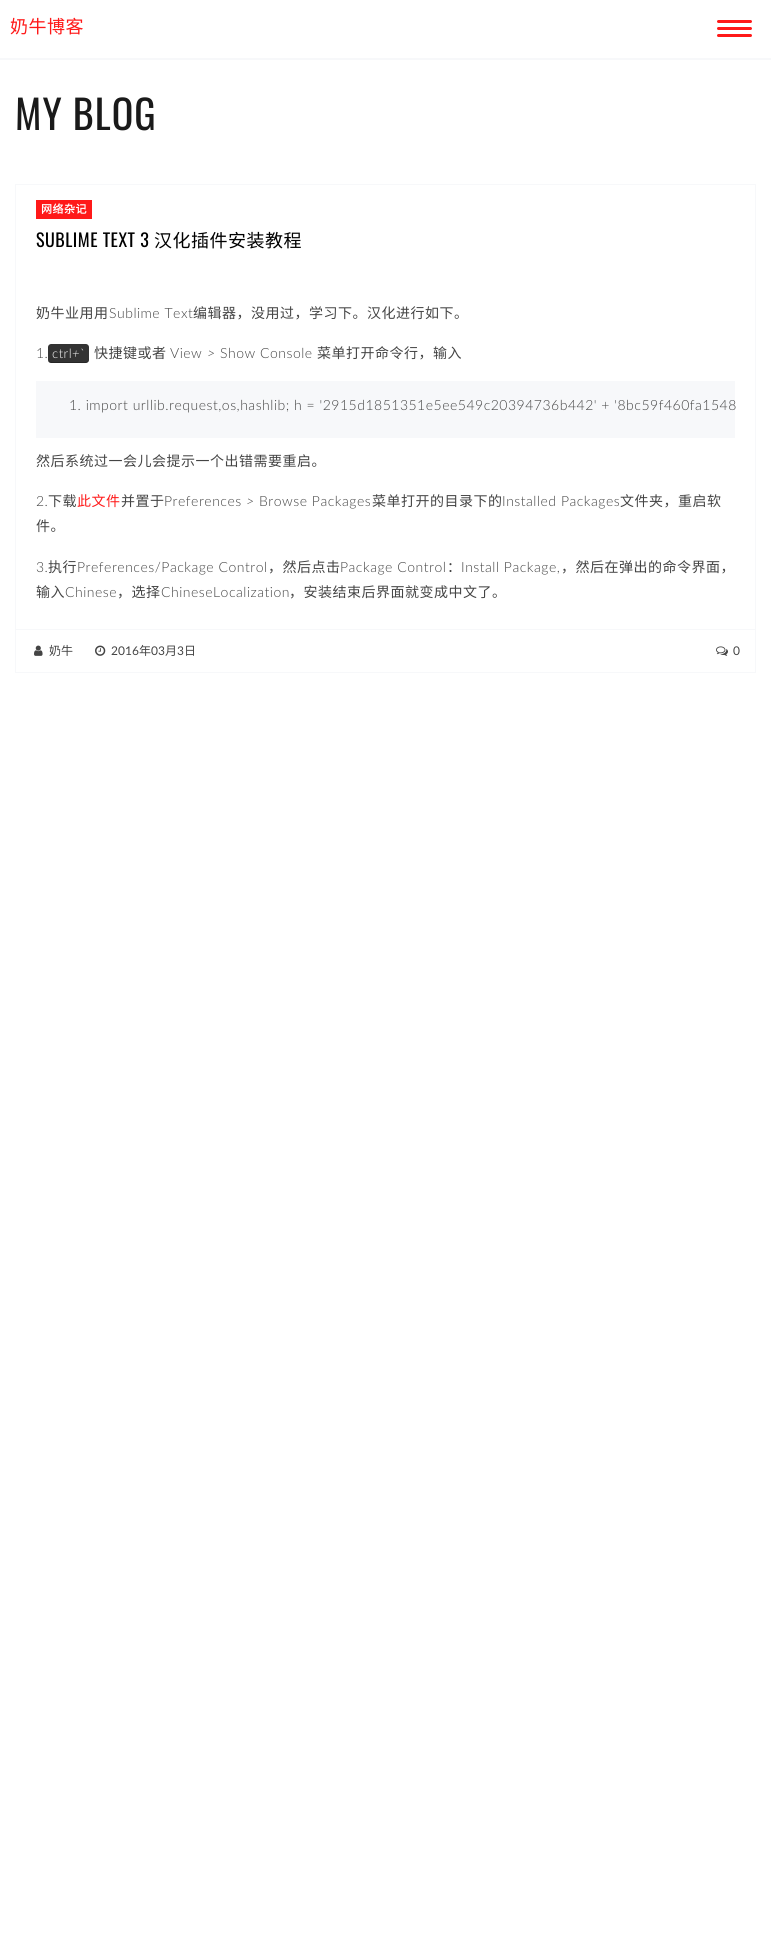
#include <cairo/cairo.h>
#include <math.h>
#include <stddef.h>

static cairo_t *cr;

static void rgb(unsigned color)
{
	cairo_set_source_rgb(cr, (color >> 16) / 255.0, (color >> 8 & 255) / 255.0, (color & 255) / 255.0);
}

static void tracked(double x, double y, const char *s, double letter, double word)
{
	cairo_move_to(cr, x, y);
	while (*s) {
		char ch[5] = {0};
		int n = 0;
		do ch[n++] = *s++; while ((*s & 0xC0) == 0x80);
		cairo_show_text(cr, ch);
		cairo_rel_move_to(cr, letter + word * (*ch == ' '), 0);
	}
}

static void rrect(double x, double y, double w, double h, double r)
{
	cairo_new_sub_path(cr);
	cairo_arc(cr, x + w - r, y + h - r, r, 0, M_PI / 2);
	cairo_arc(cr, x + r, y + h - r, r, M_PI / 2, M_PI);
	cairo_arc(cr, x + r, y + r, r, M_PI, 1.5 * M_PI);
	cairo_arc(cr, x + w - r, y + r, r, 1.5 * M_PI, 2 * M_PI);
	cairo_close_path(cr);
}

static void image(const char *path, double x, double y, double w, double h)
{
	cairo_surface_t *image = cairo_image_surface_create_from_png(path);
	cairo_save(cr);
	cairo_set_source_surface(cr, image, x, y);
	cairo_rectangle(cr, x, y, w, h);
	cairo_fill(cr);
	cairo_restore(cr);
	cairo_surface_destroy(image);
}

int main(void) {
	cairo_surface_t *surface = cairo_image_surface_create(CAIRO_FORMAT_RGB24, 771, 1933);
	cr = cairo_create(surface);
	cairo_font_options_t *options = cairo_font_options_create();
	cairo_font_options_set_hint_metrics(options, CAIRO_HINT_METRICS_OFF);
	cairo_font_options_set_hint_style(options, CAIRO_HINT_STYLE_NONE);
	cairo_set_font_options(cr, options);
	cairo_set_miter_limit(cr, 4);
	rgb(0xffffff);
	cairo_paint(cr);
	rgb(0xf7f8fa);
	cairo_rectangle(cr, 0, 58, 771, 2);
	cairo_fill(cr);
	rgb(0xff1919);
	rrect(717, 27, 35, 3, 1.5);
	cairo_fill(cr);
	rrect(717, 20, 35, 3, 1.5);
	cairo_fill(cr);
	rrect(717, 34, 35, 3, 1.5);
	cairo_fill(cr);
	cairo_rectangle(cr, 15.5, 184.5, 740, 488);
	rgb(0xf7f8fa);
	cairo_set_line_width(cr, 1);
	cairo_stroke(cr);
	rgb(0xff1919);
	cairo_rectangle(cr, 36, 200, 56, 19);
	cairo_fill(cr);
	rgb(0x333333);
	cairo_new_path(cr);
	cairo_move_to(cr, 51, 344);
	cairo_line_to(cr, 72, 344);
	cairo_line_to(cr, 72, 363);
	cairo_line_to(cr, 51, 363);
	cairo_curve_to(cr, 49.5, 363, 48, 361.5, 48, 360);
	cairo_line_to(cr, 48, 347);
	cairo_curve_to(cr, 48, 345.5, 49.5, 344, 51, 344);
	cairo_close_path(cr);
	cairo_fill(cr);
	cairo_set_source_rgba(cr, 0, 0, 0, 0.25);
	cairo_new_path(cr);
	cairo_move_to(cr, 48, 360.5);
	cairo_curve_to(cr, 48, 362, 49.5, 363, 51, 363);
	cairo_line_to(cr, 72, 363);
	cairo_line_to(cr, 72, 362);
	cairo_line_to(cr, 54, 362);
	cairo_curve_to(cr, 50.5, 362, 49, 361.5, 48, 360.5);
	cairo_close_path(cr);
	cairo_fill(cr);
	rgb(0x333333);
	cairo_rectangle(cr, 72, 344, 8, 19);
	cairo_fill(cr);
	rgb(0x262626);
	cairo_rectangle(cr, 72, 362, 8, 1);
	cairo_fill(cr);
	rgb(0x333333);
	cairo_new_path(cr);
	cairo_move_to(cr, 80, 344);
	cairo_line_to(cr, 86, 344);
	cairo_curve_to(cr, 87.5, 344, 89, 345.5, 89, 347);
	cairo_line_to(cr, 89, 360);
	cairo_curve_to(cr, 89, 361.5, 87.5, 363, 86, 363);
	cairo_line_to(cr, 80, 363);
	cairo_close_path(cr);
	cairo_fill(cr);
	cairo_set_source_rgba(cr, 0, 0, 0, 0.25);
	cairo_new_path(cr);
	cairo_move_to(cr, 80, 362);
	cairo_line_to(cr, 80, 363);
	cairo_curve_to(cr, 82.5, 363, 88, 364, 89, 360.5);
	cairo_line_to(cr, 89, 358);
	cairo_curve_to(cr, 89, 363, 84, 362, 80, 362);
	cairo_close_path(cr);
	cairo_fill(cr);
	rgb(0xf7f8fa);
	cairo_rectangle(cr, 36, 381, 699, 57);
	cairo_fill(cr);
	cairo_rectangle(cr, 16, 629, 739, 1);
	cairo_fill(cr);
	image("img/1.png", 34, 645, 9, 11);
	image("img/2.png", 95, 645, 11, 11);
	image("img/3.png", 716, 646, 12, 10);
	cairo_select_font_face(cr, "Noto Sans CJK SC", CAIRO_FONT_SLANT_NORMAL, CAIRO_FONT_WEIGHT_NORMAL);
	cairo_set_font_size(cr, 18);
	rgb(0xff1919);
	tracked(10, 33, "奶牛博客", 0.5, 0);
	cairo_select_font_face(cr, "Oswald", CAIRO_FONT_SLANT_NORMAL, CAIRO_FONT_WEIGHT_NORMAL);
	cairo_set_font_size(cr, 40);
	rgb(0x1a1a1a);
	tracked(15, 130, "MY BLOG", 1, 0);
	cairo_select_font_face(cr, "Noto Sans CJK SC", CAIRO_FONT_SLANT_NORMAL, CAIRO_FONT_WEIGHT_BOLD);
	cairo_set_font_size(cr, 11);
	rgb(0xffffff);
	tracked(41, 213, "网络杂记", 0.5, 0);
	cairo_select_font_face(cr, "Oswald", CAIRO_FONT_SLANT_NORMAL, CAIRO_FONT_WEIGHT_NORMAL);
	cairo_set_font_size(cr, 18);
	rgb(0x000000);
	tracked(36, 247, "SUBLIME TEXT 3", 0.5, 0);
	cairo_select_font_face(cr, "Noto Sans CJK SC", CAIRO_FONT_SLANT_NORMAL, CAIRO_FONT_WEIGHT_NORMAL);
	tracked(154, 247, "汉化插件安装教程", 0.5, 0);
	cairo_set_font_size(cr, 14);
	rgb(0x444444);
	tracked(36, 318, "奶牛业用用", 0.5, 0);
	cairo_select_font_face(cr, "Lato Light", CAIRO_FONT_SLANT_NORMAL, CAIRO_FONT_WEIGHT_NORMAL);
	tracked(109, 318, "Sublime Text", 0.5, 0);
	cairo_select_font_face(cr, "Noto Sans CJK SC", CAIRO_FONT_SLANT_NORMAL, CAIRO_FONT_WEIGHT_NORMAL);
	tracked(193, 318, "编辑器，没用过，学习下。汉化进行如下。", 0.5, 0);
	cairo_select_font_face(cr, "Lato Light", CAIRO_FONT_SLANT_NORMAL, CAIRO_FONT_WEIGHT_NORMAL);
	tracked(36, 358, "1.", 0.5, 0);
	cairo_set_font_size(cr, 13);
	rgb(0xffffff);
	tracked(52, 358, "ctrl", 0.5, 0);
	cairo_select_font_face(cr, "Lato Light", CAIRO_FONT_SLANT_ITALIC, CAIRO_FONT_WEIGHT_NORMAL);
	tracked(72, 358, "+", 0.5, 0);
	cairo_select_font_face(cr, "Lato Light", CAIRO_FONT_SLANT_NORMAL, CAIRO_FONT_WEIGHT_NORMAL);
	tracked(80, 358, "`", 0.5, 0);
	cairo_select_font_face(cr, "Noto Sans CJK SC", CAIRO_FONT_SLANT_NORMAL, CAIRO_FONT_WEIGHT_NORMAL);
	cairo_set_font_size(cr, 14);
	rgb(0x444444);
	tracked(94, 358, "快捷键或者", 0.5, 0);
	cairo_select_font_face(cr, "Lato Light", CAIRO_FONT_SLANT_NORMAL, CAIRO_FONT_WEIGHT_NORMAL);
	tracked(170, 358, "View", 0.5, 0);
	cairo_select_font_face(cr, "Lato Light", CAIRO_FONT_SLANT_ITALIC, CAIRO_FONT_WEIGHT_NORMAL);
	tracked(207, 358, ">", 0.5, 0);
	cairo_select_font_face(cr, "Lato Light", CAIRO_FONT_SLANT_NORMAL, CAIRO_FONT_WEIGHT_NORMAL);
	tracked(220, 358, "Show Console", 0.5, 0);
	cairo_select_font_face(cr, "Noto Sans CJK SC", CAIRO_FONT_SLANT_NORMAL, CAIRO_FONT_WEIGHT_NORMAL);
	tracked(317, 358, "菜单打开命令行，输入", 0.5, 0);
	cairo_select_font_face(cr, "Lato Light", CAIRO_FONT_SLANT_NORMAL, CAIRO_FONT_WEIGHT_NORMAL);
	tracked(69, 410, "1. import urllib.request,os,hashlib; h = '2915d1851351e5ee549c20394736b442' + '8bc59f460fa1548", 0.5, 0);
	cairo_select_font_face(cr, "Noto Sans CJK SC", CAIRO_FONT_SLANT_NORMAL, CAIRO_FONT_WEIGHT_NORMAL);
	tracked(36, 466, "然后系统过一会儿会提示一个出错需要重启。", 0.5, 0);
	cairo_select_font_face(cr, "Lato Light", CAIRO_FONT_SLANT_NORMAL, CAIRO_FONT_WEIGHT_NORMAL);
	tracked(36, 506, "2.", 0.5, 0);
	cairo_select_font_face(cr, "Noto Sans CJK SC", CAIRO_FONT_SLANT_NORMAL, CAIRO_FONT_WEIGHT_NORMAL);
	tracked(48, 506, "下载", 0.5, 0);
	rgb(0xff1919);
	tracked(77, 506, "此文件", 0.5, 0);
	rgb(0x444444);
	tracked(121, 506, "并置于", 0.5, 0);
	cairo_select_font_face(cr, "Lato Light", CAIRO_FONT_SLANT_NORMAL, CAIRO_FONT_WEIGHT_NORMAL);
	tracked(164, 506, "Preferences", 0.5, 0);
	cairo_select_font_face(cr, "Lato Light", CAIRO_FONT_SLANT_ITALIC, CAIRO_FONT_WEIGHT_NORMAL);
	tracked(246, 506, ">", 0.5, 0);
	cairo_select_font_face(cr, "Lato Light", CAIRO_FONT_SLANT_NORMAL, CAIRO_FONT_WEIGHT_NORMAL);
	tracked(259, 506, "Browse Packages", 0.5, 0);
	cairo_select_font_face(cr, "Noto Sans CJK SC", CAIRO_FONT_SLANT_NORMAL, CAIRO_FONT_WEIGHT_NORMAL);
	tracked(372, 506, "菜单打开的目录下的", 0.5, 0);
	cairo_select_font_face(cr, "Lato Light", CAIRO_FONT_SLANT_NORMAL, CAIRO_FONT_WEIGHT_NORMAL);
	tracked(502, 506, "Installed Packages", 0.5, 0);
	cairo_select_font_face(cr, "Noto Sans CJK SC", CAIRO_FONT_SLANT_NORMAL, CAIRO_FONT_WEIGHT_NORMAL);
	tracked(620, 506, "文件夹，重启软", 0.5, 0);
	tracked(36, 531, "件。", 0.5, 0);
	cairo_select_font_face(cr, "Lato Light", CAIRO_FONT_SLANT_NORMAL, CAIRO_FONT_WEIGHT_NORMAL);
	tracked(36, 572, "3.", 0.5, 0);
	cairo_select_font_face(cr, "Noto Sans CJK SC", CAIRO_FONT_SLANT_NORMAL, CAIRO_FONT_WEIGHT_NORMAL);
	tracked(48, 572, "执行", 0.5, 0);
	cairo_select_font_face(cr, "Lato Light", CAIRO_FONT_SLANT_NORMAL, CAIRO_FONT_WEIGHT_NORMAL);
	tracked(77, 572, "Preferences/Package Control", 0.5, 0);
	cairo_select_font_face(cr, "Noto Sans CJK SC", CAIRO_FONT_SLANT_NORMAL, CAIRO_FONT_WEIGHT_NORMAL);
	tracked(268, 572, "，然后点击", 0.5, 0);
	cairo_select_font_face(cr, "Lato Light", CAIRO_FONT_SLANT_NORMAL, CAIRO_FONT_WEIGHT_NORMAL);
	tracked(340, 572, "Package Control", 0.5, 0);
	cairo_select_font_face(cr, "Noto Sans CJK SC", CAIRO_FONT_SLANT_NORMAL, CAIRO_FONT_WEIGHT_NORMAL);
	tracked(447, 572, "：", 0.5, 0);
	cairo_select_font_face(cr, "Lato Light", CAIRO_FONT_SLANT_NORMAL, CAIRO_FONT_WEIGHT_NORMAL);
	tracked(461, 572, "Install Package,", 0.5, 0);
	cairo_select_font_face(cr, "Noto Sans CJK SC", CAIRO_FONT_SLANT_NORMAL, CAIRO_FONT_WEIGHT_NORMAL);
	tracked(561, 572, "，然后在弹出的命令界面，", 0.5, 0);
	tracked(36, 597, "输入", 0.5, 0);
	cairo_select_font_face(cr, "Lato Light", CAIRO_FONT_SLANT_NORMAL, CAIRO_FONT_WEIGHT_NORMAL);
	tracked(65, 597, "Chinese", 0.5, 0);
	cairo_select_font_face(cr, "Noto Sans CJK SC", CAIRO_FONT_SLANT_NORMAL, CAIRO_FONT_WEIGHT_NORMAL);
	tracked(117, 597, "，选择", 0.5, 0);
	cairo_select_font_face(cr, "Lato Light", CAIRO_FONT_SLANT_NORMAL, CAIRO_FONT_WEIGHT_NORMAL);
	tracked(161, 597, "ChineseLocalization", 0.5, 0);
	cairo_select_font_face(cr, "Noto Sans CJK SC", CAIRO_FONT_SLANT_NORMAL, CAIRO_FONT_WEIGHT_NORMAL);
	tracked(289, 597, "，安装结束后界面就变成中文了。", 0.5, 0);
	cairo_set_font_size(cr, 12);
	cairo_move_to(cr, 49, 655);
	cairo_show_text(cr, "奶牛");
	cairo_select_font_face(cr, "Lato", CAIRO_FONT_SLANT_NORMAL, CAIRO_FONT_WEIGHT_NORMAL);
	cairo_move_to(cr, 111, 655);
	cairo_show_text(cr, "2016");
	cairo_select_font_face(cr, "Noto Sans CJK SC", CAIRO_FONT_SLANT_NORMAL, CAIRO_FONT_WEIGHT_NORMAL);
	cairo_move_to(cr, 139, 655);
	cairo_show_text(cr, "年");
	cairo_select_font_face(cr, "Lato", CAIRO_FONT_SLANT_NORMAL, CAIRO_FONT_WEIGHT_NORMAL);
	cairo_move_to(cr, 151, 655);
	cairo_show_text(cr, "03");
	cairo_select_font_face(cr, "Noto Sans CJK SC", CAIRO_FONT_SLANT_NORMAL, CAIRO_FONT_WEIGHT_NORMAL);
	cairo_move_to(cr, 165, 655);
	cairo_show_text(cr, "月");
	cairo_select_font_face(cr, "Lato", CAIRO_FONT_SLANT_NORMAL, CAIRO_FONT_WEIGHT_NORMAL);
	cairo_move_to(cr, 177, 655);
	cairo_show_text(cr, "3");
	cairo_select_font_face(cr, "Noto Sans CJK SC", CAIRO_FONT_SLANT_NORMAL, CAIRO_FONT_WEIGHT_NORMAL);
	cairo_move_to(cr, 184, 655);
	cairo_show_text(cr, "日");
	cairo_select_font_face(cr, "Lato", CAIRO_FONT_SLANT_NORMAL, CAIRO_FONT_WEIGHT_NORMAL);
	cairo_move_to(cr, 733, 655);
	cairo_show_text(cr, "0");
	cairo_surface_write_to_png(surface, "page.png");
	cairo_font_options_destroy(options);
	cairo_destroy(cr);
	cairo_surface_destroy(surface);
	return 0;
}
